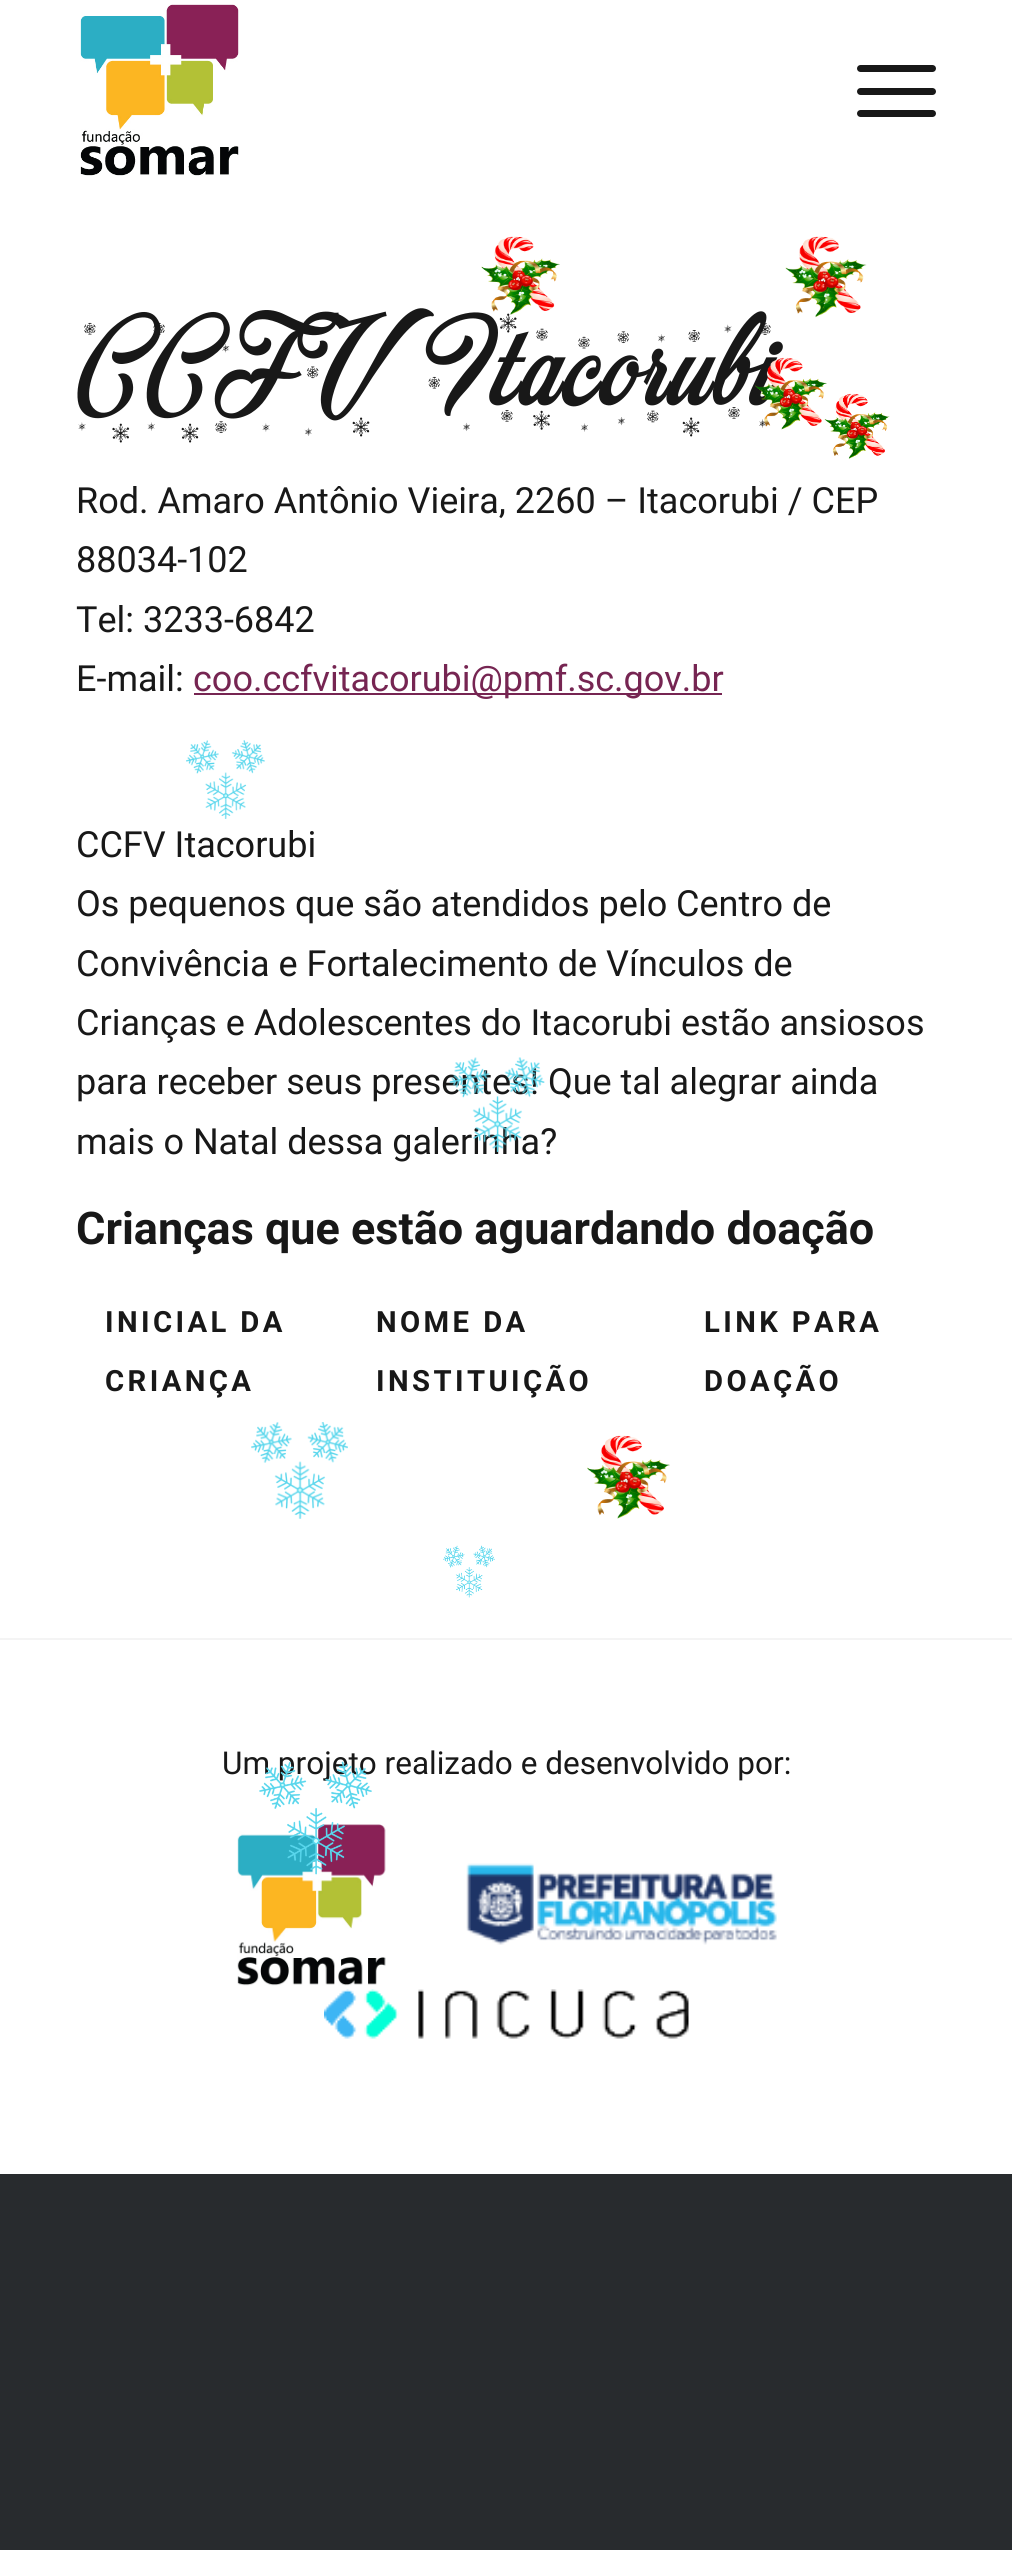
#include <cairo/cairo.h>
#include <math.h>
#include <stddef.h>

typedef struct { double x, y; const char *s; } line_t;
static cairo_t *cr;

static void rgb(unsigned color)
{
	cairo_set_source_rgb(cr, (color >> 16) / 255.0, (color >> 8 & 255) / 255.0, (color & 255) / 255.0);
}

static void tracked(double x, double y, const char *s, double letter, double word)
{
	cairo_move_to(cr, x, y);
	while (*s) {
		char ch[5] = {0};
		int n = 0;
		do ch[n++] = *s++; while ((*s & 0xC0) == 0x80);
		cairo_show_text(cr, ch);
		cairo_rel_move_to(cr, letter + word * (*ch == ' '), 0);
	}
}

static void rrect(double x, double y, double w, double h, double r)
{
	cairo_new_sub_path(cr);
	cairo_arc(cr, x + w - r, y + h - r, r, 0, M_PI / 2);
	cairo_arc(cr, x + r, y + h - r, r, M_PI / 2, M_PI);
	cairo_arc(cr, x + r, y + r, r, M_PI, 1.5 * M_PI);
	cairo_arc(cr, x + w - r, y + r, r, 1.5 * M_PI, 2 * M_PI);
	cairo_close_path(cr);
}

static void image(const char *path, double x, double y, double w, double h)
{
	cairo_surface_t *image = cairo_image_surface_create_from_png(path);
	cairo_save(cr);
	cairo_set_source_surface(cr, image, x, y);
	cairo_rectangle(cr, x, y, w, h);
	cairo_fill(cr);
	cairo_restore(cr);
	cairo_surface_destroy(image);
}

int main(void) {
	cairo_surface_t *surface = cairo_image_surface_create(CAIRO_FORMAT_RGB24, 1012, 2550);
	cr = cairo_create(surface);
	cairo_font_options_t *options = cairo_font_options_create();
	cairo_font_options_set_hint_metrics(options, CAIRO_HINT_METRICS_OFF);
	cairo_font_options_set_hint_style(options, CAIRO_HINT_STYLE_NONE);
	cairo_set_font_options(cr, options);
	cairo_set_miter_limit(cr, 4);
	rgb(0x282b2e);
	cairo_paint(cr);
	rgb(0xffffff);
	cairo_rectangle(cr, 0, 0, 1012, 2174);
	cairo_fill(cr);
	image("img/2.png", 785, 236, 82, 82);
	image("img/3.png", 80, 4, 159, 172);
	rgb(0x181818);
	rrect(857, 88, 79, 7, 3.5);
	cairo_fill(cr);
	rrect(857, 65, 79, 7, 3.5);
	cairo_fill(cr);
	rrect(857, 110, 79, 7, 3.5);
	cairo_fill(cr);
	rgb(0x762552);
	cairo_rectangle(cr, 194, 693, 528, 2);
	cairo_fill(cr);
	rgb(0xf4f4f4);
	cairo_rectangle(cr, 0, 1638, 1012, 2);
	cairo_fill(cr);
	image("img/4.png", 237, 1824, 149, 162);
	image("img/5.png", 466, 1863, 311, 82);
	image("img/6.png", 324, 1989, 365, 50);
	image("img/8.png", 824, 393, 66, 66);
	image("img/9.png", 186, 740, 79, 79);
	image("img/11.png", 251, 1422, 97, 97);
	image("img/12.png", 587, 1435, 83, 84);
	image("img/13.png", 443, 1545, 52, 53);
	cairo_select_font_face(cr, "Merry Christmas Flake", CAIRO_FONT_SLANT_NORMAL, CAIRO_FONT_WEIGHT_NORMAL);
	cairo_set_font_size(cr, 135);
	rgb(0x181818);
	tracked(76, 405, "CCFV Itacorubi", 2.25, 0);
	image("img/1.png", 481, 236, 79, 79);
	cairo_select_font_face(cr, "Roboto", CAIRO_FONT_SLANT_NORMAL, CAIRO_FONT_WEIGHT_NORMAL);
	cairo_set_font_size(cr, 36);
	{
		static const line_t items[] = {
			{76, 513, "Rod. Amaro Antônio Vieira, 2260 – Itacorubi / CEP"},
			{76, 572, "88034-102"},
			{76, 632, "Tel: 3233-6842"},
			{76, 691, "E-mail:"},
		};
		for (size_t i = 0; i < sizeof items / sizeof *items; i++) {
			cairo_move_to(cr, items[i].x, items[i].y);
			cairo_show_text(cr, items[i].s);
		}
	}
	rgb(0x762552);
	cairo_move_to(cr, 193, 691);
	cairo_show_text(cr, "coo.ccfvitacorubi@pmf.sc.gov.br");
	rgb(0x181818);
	{
		static const line_t items[] = {
			{76, 857, "CCFV Itacorubi"},
			{76, 916, "Os pequenos que são atendidos pelo Centro de"},
			{76, 976, "Convivência e Fortalecimento de Vínculos de"},
			{76, 1035, "Crianças e Adolescentes do Itacorubi estão ansiosos"},
			{76, 1094, "para receber seus presentes! Que tal alegrar ainda"},
			{76, 1154, "mais o Natal dessa galerinha?"},
		};
		for (size_t i = 0; i < sizeof items / sizeof *items; i++) {
			cairo_move_to(cr, items[i].x, items[i].y);
			cairo_show_text(cr, items[i].s);
		}
	}
	cairo_select_font_face(cr, "Roboto", CAIRO_FONT_SLANT_NORMAL, CAIRO_FONT_WEIGHT_BOLD);
	cairo_set_font_size(cr, 45);
	cairo_move_to(cr, 76, 1244);
	cairo_show_text(cr, "Crianças que estão aguardando doação");
	cairo_set_font_size(cr, 29.25);
	{
		static const line_t items[] = {
			{105, 1332, "INICIAL DA"},
			{105, 1391, "CRIANÇA"},
			{376, 1332, "NOME DA"},
			{376, 1391, "INSTITUIÇÃO"},
			{704, 1332, "LINK PARA"},
			{704, 1391, "DOAÇÃO"},
		};
		for (size_t i = 0; i < sizeof items / sizeof *items; i++) {
			tracked(items[i].x, items[i].y, items[i].s, 3.4, 0);
		}
	}
	cairo_select_font_face(cr, "Roboto", CAIRO_FONT_SLANT_NORMAL, CAIRO_FONT_WEIGHT_NORMAL);
	cairo_set_font_size(cr, 31.5);
	cairo_move_to(cr, 222, 1774);
	cairo_show_text(cr, "Um projeto realizado e desenvolvido por:");
	image("img/7.png", 755, 357, 72, 73);
	image("img/10.png", 449, 1057, 96, 95);
	image("img/14.png", 259, 1761, 113, 114);
	cairo_surface_write_to_png(surface, "page.png");
	cairo_font_options_destroy(options);
	cairo_destroy(cr);
	cairo_surface_destroy(surface);
	return 0;
}
